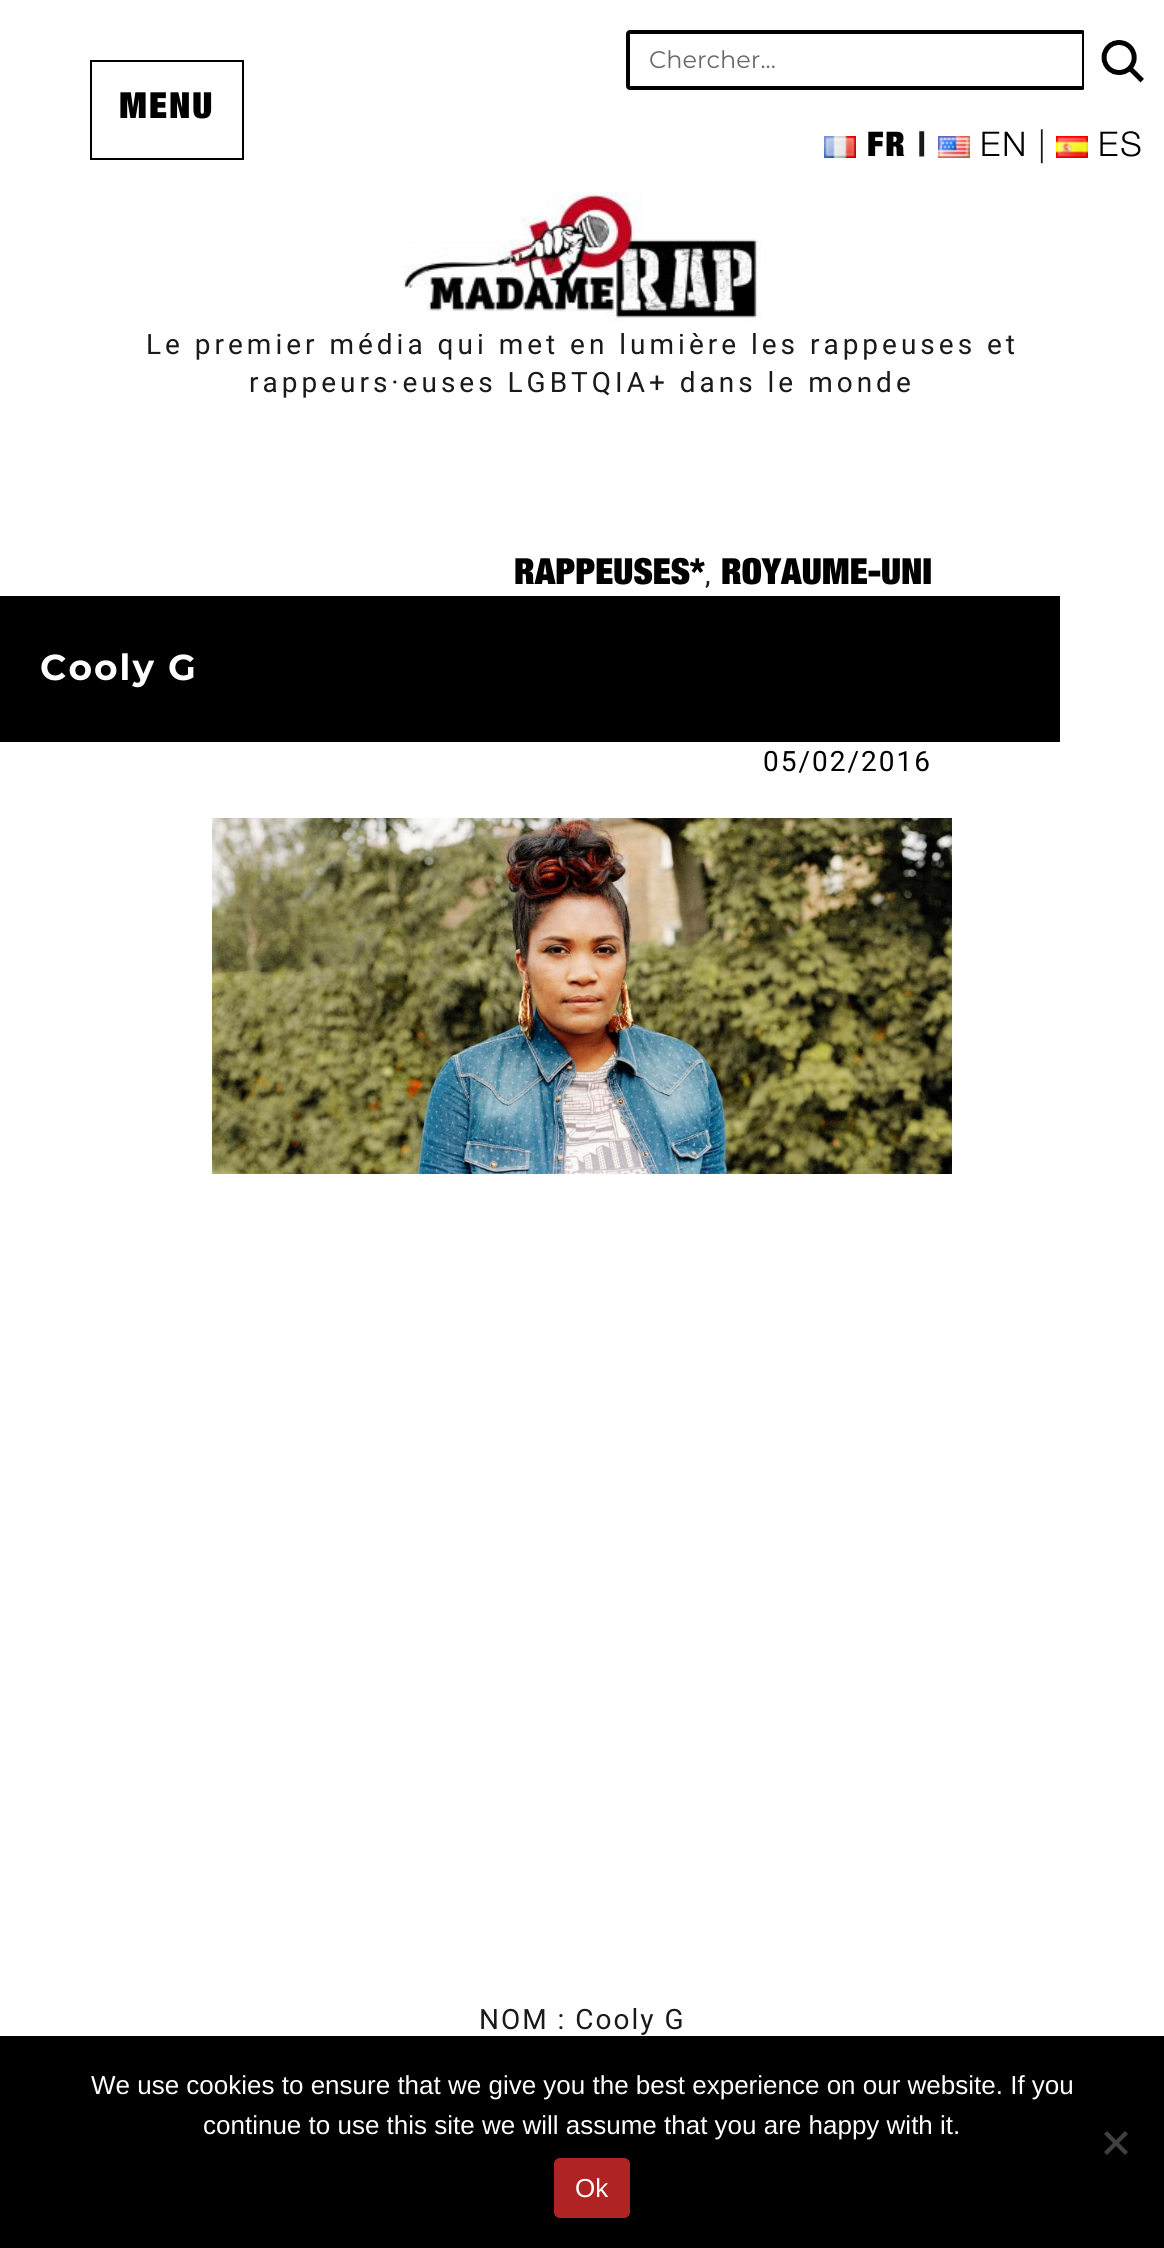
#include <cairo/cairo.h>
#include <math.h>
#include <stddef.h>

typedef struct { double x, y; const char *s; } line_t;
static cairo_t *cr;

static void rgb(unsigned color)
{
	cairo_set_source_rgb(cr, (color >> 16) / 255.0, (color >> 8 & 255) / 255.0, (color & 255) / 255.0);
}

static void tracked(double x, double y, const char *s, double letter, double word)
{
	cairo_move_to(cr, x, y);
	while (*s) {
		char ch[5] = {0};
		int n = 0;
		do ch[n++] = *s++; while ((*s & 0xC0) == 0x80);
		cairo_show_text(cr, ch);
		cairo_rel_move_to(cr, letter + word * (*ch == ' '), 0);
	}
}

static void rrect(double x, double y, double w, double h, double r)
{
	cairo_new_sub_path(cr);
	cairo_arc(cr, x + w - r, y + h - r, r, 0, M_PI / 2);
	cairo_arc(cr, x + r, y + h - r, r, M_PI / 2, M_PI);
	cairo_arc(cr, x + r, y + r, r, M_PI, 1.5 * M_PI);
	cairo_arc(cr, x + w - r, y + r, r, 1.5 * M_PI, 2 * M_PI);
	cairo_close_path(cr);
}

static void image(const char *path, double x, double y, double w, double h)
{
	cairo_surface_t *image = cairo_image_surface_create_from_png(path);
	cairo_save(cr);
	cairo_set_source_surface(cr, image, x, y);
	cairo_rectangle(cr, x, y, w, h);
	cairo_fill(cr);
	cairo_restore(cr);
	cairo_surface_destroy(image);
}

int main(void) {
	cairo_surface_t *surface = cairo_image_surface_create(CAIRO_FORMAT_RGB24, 1164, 2248);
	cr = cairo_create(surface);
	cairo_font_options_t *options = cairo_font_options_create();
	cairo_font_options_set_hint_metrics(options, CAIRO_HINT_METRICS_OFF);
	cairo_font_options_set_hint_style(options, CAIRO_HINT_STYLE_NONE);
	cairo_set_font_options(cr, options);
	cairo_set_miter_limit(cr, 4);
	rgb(0xffffff);
	cairo_paint(cr);
	cairo_rectangle(cr, 91, 61, 152, 98);
	rgb(0x000000);
	cairo_stroke(cr);
	rrect(628, 32, 456, 56, 2);
	cairo_set_line_width(cr, 4);
	cairo_stroke(cr);
	rgb(0xffffff);
	rrect(1084, 20, 80, 80, 4);
	cairo_fill(cr);
	image("img/1.png", 1101, 40, 43, 43);
	image("img/2.png", 824, 136, 32, 22);
	image("img/3.png", 938, 136, 32, 22);
	image("img/4.png", 1056, 136, 32, 22);
	image("img/5.png", 402, 192, 360, 130);
	rgb(0x000000);
	cairo_rectangle(cr, 0, 596, 1060, 146);
	cairo_fill(cr);
	image("img/6.png", 212, 818, 740, 356);
	cairo_rectangle(cr, 0, 2036, 1164, 212);
	cairo_fill(cr);
	rgb(0x404040);
	cairo_new_path(cr);
	cairo_move_to(cr, 1125, 2131);
	cairo_line_to(cr, 1128, 2134);
	cairo_line_to(cr, 1107, 2155);
	cairo_line_to(cr, 1104, 2152);
	cairo_close_path(cr);
	cairo_fill(cr);
	cairo_new_path(cr);
	cairo_move_to(cr, 1104, 2134);
	cairo_line_to(cr, 1107, 2131);
	cairo_line_to(cr, 1128, 2152);
	cairo_line_to(cr, 1125, 2155);
	cairo_close_path(cr);
	cairo_fill(cr);
	rgb(0xb02323);
	rrect(554, 2158, 76, 60, 6);
	cairo_fill(cr);
	cairo_select_font_face(cr, "Helvetica Neue Black", CAIRO_FONT_SLANT_NORMAL, CAIRO_FONT_WEIGHT_NORMAL);
	cairo_set_font_size(cr, 36);
	rgb(0x000000);
	tracked(119, 118, "MENU", 2, 0);
	cairo_select_font_face(cr, "Montserrat Thin", CAIRO_FONT_SLANT_NORMAL, CAIRO_FONT_WEIGHT_NORMAL);
	cairo_set_font_size(cr, 24);
	rgb(0x686868);
	cairo_move_to(cr, 649, 68);
	cairo_show_text(cr, "Chercher...");
	cairo_select_font_face(cr, "Helvetica Neue Black", CAIRO_FONT_SLANT_NORMAL, CAIRO_FONT_WEIGHT_NORMAL);
	cairo_set_font_size(cr, 34);
	rgb(0x000000);
	tracked(867, 156, "FR", 2, 0);
	rgb(0x1a1a1a);
	tracked(917, 156, "|", 2, 0);
	cairo_select_font_face(cr, "Helvetica Neue Light", CAIRO_FONT_SLANT_NORMAL, CAIRO_FONT_WEIGHT_NORMAL);
	rgb(0x000000);
	tracked(980, 156, "EN", 2, 0);
	rgb(0x1a1a1a);
	tracked(1038, 156, "|", 2, 0);
	rgb(0x000000);
	tracked(1098, 156, "ES", 2, 0);
	cairo_select_font_face(cr, "Roboto", CAIRO_FONT_SLANT_NORMAL, CAIRO_FONT_WEIGHT_NORMAL);
	cairo_set_font_size(cr, 28);
	rgb(0x1a1a1a);
	tracked(146, 354, "Le premier média qui met en lumière les rappeuses et", 4, 0);
	tracked(249, 392, "rappeurs·euses LGBTQIA+ dans le monde", 4, 0);
	cairo_select_font_face(cr, "Helvetica Neue Black", CAIRO_FONT_SLANT_NORMAL, CAIRO_FONT_WEIGHT_NORMAL);
	cairo_set_font_size(cr, 36);
	rgb(0x000000);
	cairo_move_to(cr, 514, 584);
	cairo_show_text(cr, "RAPPEUSES*");
	cairo_select_font_face(cr, "Roboto", CAIRO_FONT_SLANT_NORMAL, CAIRO_FONT_WEIGHT_NORMAL);
	cairo_set_font_size(cr, 28);
	rgb(0x1a1a1a);
	tracked(705, 584, ",", 2, 0);
	cairo_select_font_face(cr, "Helvetica Neue Black", CAIRO_FONT_SLANT_NORMAL, CAIRO_FONT_WEIGHT_NORMAL);
	cairo_set_font_size(cr, 36);
	rgb(0x000000);
	cairo_move_to(cr, 721, 584);
	cairo_show_text(cr, "ROYAUME-UNI");
	cairo_select_font_face(cr, "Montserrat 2 Thin", CAIRO_FONT_SLANT_NORMAL, CAIRO_FONT_WEIGHT_NORMAL);
	rgb(0xffffff);
	tracked(40, 680, "Cooly G", 2, 0);
	cairo_select_font_face(cr, "Roboto", CAIRO_FONT_SLANT_NORMAL, CAIRO_FONT_WEIGHT_NORMAL);
	cairo_set_font_size(cr, 28);
	rgb(0x000000);
	tracked(763, 771, "05/02/2016", 2, 0);
	rgb(0x1a1a1a);
	tracked(479, 2029, "NOM : Cooly G", 2, 0);
	cairo_select_font_face(cr, "Liberation Sans", CAIRO_FONT_SLANT_NORMAL, CAIRO_FONT_WEIGHT_NORMAL);
	cairo_set_font_size(cr, 26);
	rgb(0xffffff);
	{
		static const line_t items[] = {
			{91, 2094, "We use cookies to ensure that we give you the best experience on our website. If you"},
			{203, 2134, "continue to use this site we will assume that you are happy with it."},
			{575, 2197, "Ok"},
		};
		for (size_t i = 0; i < sizeof items / sizeof *items; i++) {
			cairo_move_to(cr, items[i].x, items[i].y);
			cairo_show_text(cr, items[i].s);
		}
	}
	cairo_surface_write_to_png(surface, "page.png");
	cairo_font_options_destroy(options);
	cairo_destroy(cr);
	cairo_surface_destroy(surface);
	return 0;
}
